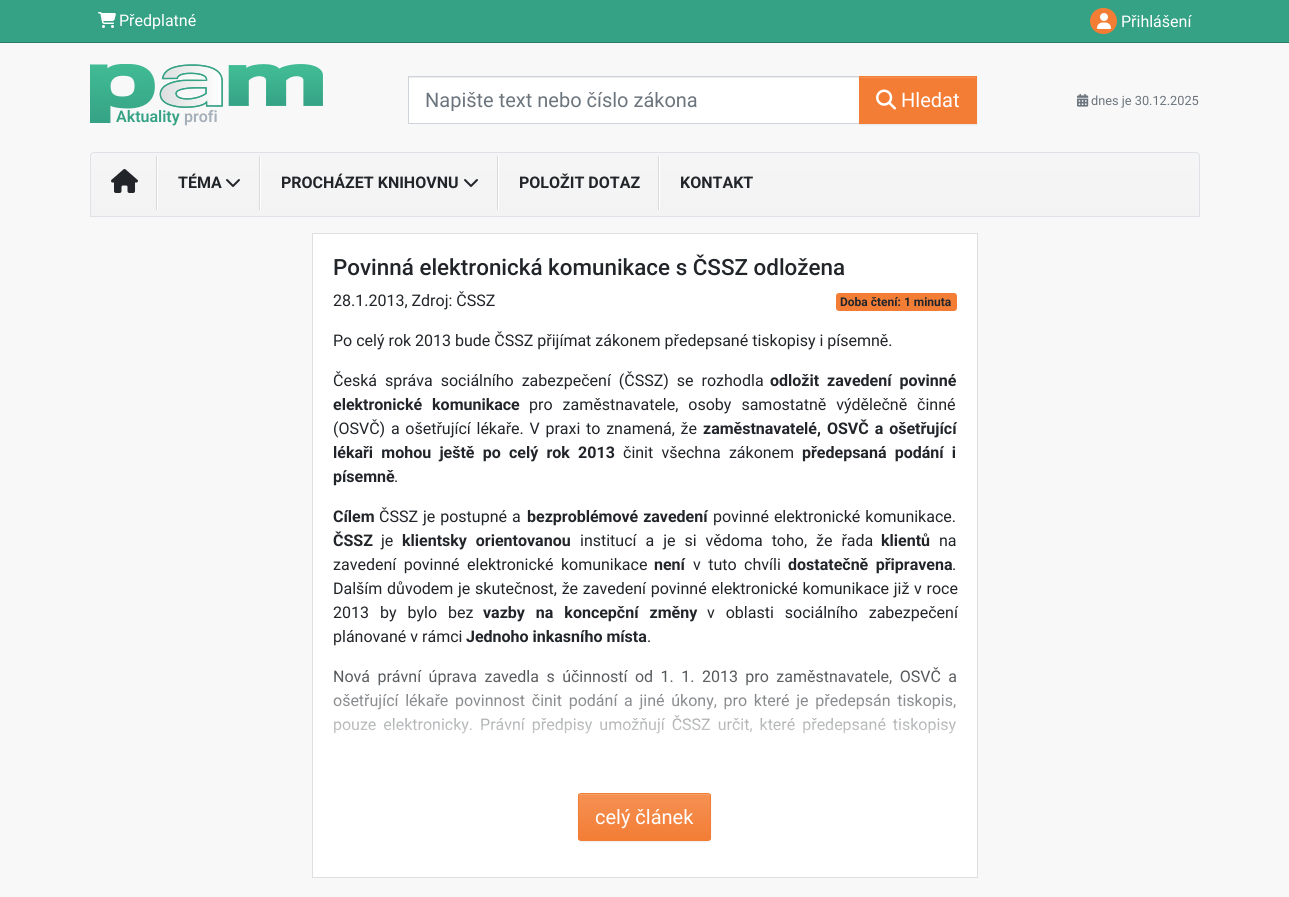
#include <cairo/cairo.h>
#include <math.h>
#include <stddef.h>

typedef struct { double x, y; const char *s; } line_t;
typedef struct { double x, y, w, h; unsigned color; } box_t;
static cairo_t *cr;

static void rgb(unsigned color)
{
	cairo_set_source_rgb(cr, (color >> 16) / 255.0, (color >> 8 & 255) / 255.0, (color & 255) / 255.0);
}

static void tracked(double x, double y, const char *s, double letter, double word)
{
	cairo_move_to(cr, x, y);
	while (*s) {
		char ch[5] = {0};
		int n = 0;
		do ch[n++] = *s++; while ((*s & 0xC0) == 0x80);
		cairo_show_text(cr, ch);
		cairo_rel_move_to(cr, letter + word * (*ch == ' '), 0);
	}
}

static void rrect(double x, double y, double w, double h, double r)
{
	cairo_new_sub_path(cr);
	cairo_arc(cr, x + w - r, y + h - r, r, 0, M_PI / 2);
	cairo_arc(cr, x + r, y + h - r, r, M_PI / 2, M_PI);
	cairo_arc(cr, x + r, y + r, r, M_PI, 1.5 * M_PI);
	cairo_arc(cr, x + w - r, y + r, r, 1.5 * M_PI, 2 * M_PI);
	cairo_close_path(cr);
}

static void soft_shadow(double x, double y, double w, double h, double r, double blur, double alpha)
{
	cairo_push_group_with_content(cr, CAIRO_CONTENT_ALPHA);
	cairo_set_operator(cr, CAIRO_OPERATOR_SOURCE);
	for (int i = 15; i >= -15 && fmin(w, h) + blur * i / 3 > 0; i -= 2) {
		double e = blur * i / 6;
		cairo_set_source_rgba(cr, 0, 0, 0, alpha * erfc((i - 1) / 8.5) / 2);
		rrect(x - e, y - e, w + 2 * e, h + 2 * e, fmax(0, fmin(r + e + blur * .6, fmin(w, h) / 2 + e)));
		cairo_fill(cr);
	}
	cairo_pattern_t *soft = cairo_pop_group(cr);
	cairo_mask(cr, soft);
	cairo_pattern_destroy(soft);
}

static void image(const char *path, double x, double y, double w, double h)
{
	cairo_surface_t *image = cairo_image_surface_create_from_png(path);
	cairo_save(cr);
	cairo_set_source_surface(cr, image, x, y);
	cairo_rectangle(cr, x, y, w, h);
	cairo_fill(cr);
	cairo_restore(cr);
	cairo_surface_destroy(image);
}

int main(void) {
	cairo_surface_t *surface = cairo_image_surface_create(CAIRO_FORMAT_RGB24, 1289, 897);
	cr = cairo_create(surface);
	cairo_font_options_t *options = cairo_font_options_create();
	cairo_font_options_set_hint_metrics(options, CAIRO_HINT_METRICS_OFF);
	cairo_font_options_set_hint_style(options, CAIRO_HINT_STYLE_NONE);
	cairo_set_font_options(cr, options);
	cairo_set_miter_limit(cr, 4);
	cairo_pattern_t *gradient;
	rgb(0xf8f8f8);
	cairo_paint(cr);
	rgb(0x35a285);
	cairo_rectangle(cr, 0, 0, 1289, 42);
	cairo_fill(cr);
	rgb(0x287c65);
	cairo_rectangle(cr, 0, 42, 1289, 1);
	cairo_fill(cr);
	image("img/1.png", 98, 12, 18, 16);
	rgb(0xf37d35);
	rrect(1090, 8, 27, 26, 13);
	cairo_fill(cr);
	image("img/2.png", 1097, 13, 14, 16);
	rgb(0xffffff);
	cairo_rectangle(cr, 409, 78, 450, 45);
	cairo_fill(cr);
	rgb(0xececec);
	cairo_rectangle(cr, 409, 77, 450, 1);
	cairo_fill(cr);
	cairo_rectangle(cr, 408.5, 76.5, 451, 47);
	rgb(0xced4da);
	cairo_set_line_width(cr, 1);
	cairo_stroke(cr);
	rgb(0x000000);
	soft_shadow(859, 77, 118, 48, 0, 0.5, 0.07);
	rgb(0xf37d35);
	cairo_rectangle(cr, 859, 76, 118, 48);
	cairo_fill(cr);
	rgb(0xf59153);
	cairo_rectangle(cr, 860, 77, 116, 1);
	cairo_fill(cr);
	image("img/3.png", 876, 89, 20, 21);
	image("img/4.png", 1077, 93, 12, 14);
	image("img/5.png", 90, 64, 233, 59);
	cairo_save(cr);
	cairo_new_path(cr);
	cairo_move_to(cr, 94, 152);
	cairo_line_to(cr, 1196, 152);
	cairo_curve_to(cr, 1198, 152, 1200, 154, 1200, 156);
	cairo_line_to(cr, 1200, 217);
	cairo_line_to(cr, 90, 217);
	cairo_line_to(cr, 90, 156);
	cairo_curve_to(cr, 90, 154, 92, 152, 94, 152);
	cairo_close_path(cr);
	cairo_clip(cr);
	gradient = cairo_pattern_create_linear(645, 153, 645, 216);
	cairo_pattern_add_color_stop_rgba(gradient, 0, 0.961, 0.961, 0.961, 1);
	cairo_pattern_add_color_stop_rgba(gradient, 1, 0.953, 0.953, 0.953, 1);
	cairo_set_source(cr, gradient);
	cairo_pattern_destroy(gradient);
	cairo_rectangle(cr, 90, 153, 1110, 63);
	cairo_fill(cr);
	cairo_restore(cr);
	cairo_new_path(cr);
	cairo_move_to(cr, 94, 152.5);
	cairo_line_to(cr, 1196, 152.5);
	cairo_curve_to(cr, 1198, 152.5, 1199.5, 154, 1199.5, 156);
	cairo_line_to(cr, 1199.5, 216.5);
	cairo_line_to(cr, 90.5, 216.5);
	cairo_line_to(cr, 90.5, 156);
	cairo_curve_to(cr, 90.5, 154, 92, 152.5, 94, 152.5);
	cairo_close_path(cr);
	rgb(0xdee2e6);
	cairo_stroke(cr);
	image("img/6.png", 111, 169, 27, 24);
	rgb(0xffffff);
	cairo_rectangle(cr, 157, 156, 1, 54);
	cairo_fill(cr);
	rgb(0xdadada);
	cairo_rectangle(cr, 156, 156, 1, 54);
	cairo_fill(cr);
	image("img/7.png", 226, 179, 14, 8);
	rgb(0xffffff);
	cairo_rectangle(cr, 260, 156, 1, 54);
	cairo_fill(cr);
	rgb(0xdadada);
	cairo_rectangle(cr, 259, 156, 1, 54);
	cairo_fill(cr);
	image("img/7.png", 464, 179, 14, 8);
	{
		static const box_t items[] = {
			{498, 156, 1, 54, 0xffffff},
			{497, 156, 1, 54, 0xdadada},
			{659, 156, 1, 54, 0xffffff},
			{658, 156, 1, 54, 0xdadada},
		};
		for (size_t i = 0; i < sizeof items / sizeof *items; i++) {
			rgb(items[i].color);
			cairo_rectangle(cr, items[i].x, items[i].y, items[i].w, items[i].h);
			cairo_fill(cr);
		}
	}
	rgb(0xffffff);
	cairo_rectangle(cr, 312.5, 233.5, 665, 644);
	cairo_fill_preserve(cr);
	rgb(0xdfdfdf);
	cairo_stroke(cr);
	rgb(0xf37d35);
	rrect(836, 293, 121, 18, 3);
	cairo_fill(cr);
	rgb(0x000000);
	soft_shadow(578, 794, 133, 48, 3, 0.5, 0.07);
	cairo_save(cr);
	rrect(578, 793, 133, 48, 3);
	cairo_clip(cr);
	gradient = cairo_pattern_create_linear(645, 794, 645, 840);
	cairo_pattern_add_color_stop_rgba(gradient, 0, 0.961, 0.569, 0.325, 1);
	cairo_pattern_add_color_stop_rgba(gradient, 1, 0.953, 0.49, 0.208, 1);
	cairo_set_source(cr, gradient);
	cairo_pattern_destroy(gradient);
	cairo_rectangle(cr, 578, 794, 133, 46);
	cairo_fill(cr);
	cairo_restore(cr);
	rgb(0xf7a16d);
	cairo_new_path(cr);
	cairo_move_to(cr, 581, 795);
	cairo_line_to(cr, 708, 795);
	cairo_curve_to(cr, 709, 795, 710, 796, 710, 797);
	cairo_curve_to(cr, 710, 796, 710, 794, 708, 794);
	cairo_line_to(cr, 581, 794);
	cairo_curve_to(cr, 579, 794, 579, 796, 579, 797);
	cairo_curve_to(cr, 579, 796, 580, 795, 581, 795);
	cairo_close_path(cr);
	cairo_fill(cr);
	rrect(578.5, 793.5, 132, 47, 2.5);
	rgb(0xf37d35);
	cairo_stroke(cr);
	cairo_select_font_face(cr, "Roboto", CAIRO_FONT_SLANT_NORMAL, CAIRO_FONT_WEIGHT_NORMAL);
	cairo_set_font_size(cr, 16);
	rgb(0xffffff);
	cairo_move_to(cr, 119, 26);
	cairo_show_text(cr, "Předplatné");
	cairo_move_to(cr, 1121, 27);
	cairo_show_text(cr, "Přihlášení");
	cairo_set_font_size(cr, 20);
	rgb(0x6c757d);
	cairo_move_to(cr, 425, 107);
	cairo_show_text(cr, "Napište text nebo číslo zákona");
	rgb(0xffffff);
	cairo_move_to(cr, 901, 107);
	cairo_show_text(cr, "Hledat");
	cairo_set_font_size(cr, 12.75);
	rgb(0x6c757d);
	cairo_move_to(cr, 1091, 105);
	cairo_show_text(cr, "dnes je 30.12.2025");
	cairo_select_font_face(cr, "Roboto SemiBold", CAIRO_FONT_SLANT_NORMAL, CAIRO_FONT_WEIGHT_NORMAL);
	cairo_set_font_size(cr, 16);
	rgb(0x35a285);
	cairo_move_to(cr, 116, 122);
	cairo_show_text(cr, "Aktuality");
	rgb(0xa4afb9);
	cairo_move_to(cr, 184, 122);
	cairo_show_text(cr, "profi");
	cairo_select_font_face(cr, "Roboto", CAIRO_FONT_SLANT_NORMAL, CAIRO_FONT_WEIGHT_BOLD);
	rgb(0x212529);
	{
		static const line_t items[] = {
			{178, 188, "TÉMA"},
			{281, 188, "PROCHÁZET KNIHOVNU"},
			{519, 188, "POLOŽIT DOTAZ"},
			{680, 188, "KONTAKT"},
		};
		for (size_t i = 0; i < sizeof items / sizeof *items; i++) {
			cairo_move_to(cr, items[i].x, items[i].y);
			cairo_show_text(cr, items[i].s);
		}
	}
	cairo_select_font_face(cr, "Roboto Medium", CAIRO_FONT_SLANT_NORMAL, CAIRO_FONT_WEIGHT_NORMAL);
	cairo_set_font_size(cr, 22.4);
	cairo_move_to(cr, 333, 275);
	cairo_show_text(cr, "Povinná elektronická komunikace s ČSSZ odložena");
	cairo_select_font_face(cr, "Roboto", CAIRO_FONT_SLANT_NORMAL, CAIRO_FONT_WEIGHT_NORMAL);
	cairo_set_font_size(cr, 16);
	cairo_move_to(cr, 333, 306);
	cairo_show_text(cr, "28.1.2013, Zdroj: ČSSZ");
	cairo_select_font_face(cr, "Roboto", CAIRO_FONT_SLANT_NORMAL, CAIRO_FONT_WEIGHT_BOLD);
	cairo_set_font_size(cr, 12);
	cairo_move_to(cr, 840, 306);
	cairo_show_text(cr, "Doba čtení: 1 minuta");
	cairo_select_font_face(cr, "Roboto", CAIRO_FONT_SLANT_NORMAL, CAIRO_FONT_WEIGHT_NORMAL);
	cairo_set_font_size(cr, 16);
	cairo_move_to(cr, 333, 346);
	cairo_show_text(cr, "Po celý rok 2013 bude ČSSZ přijímat zákonem předepsané tiskopisy i písemně.");
	tracked(333, 386, "Česká správa sociálního zabezpečení (ČSSZ) se rozhodla", 0, 4);
	cairo_select_font_face(cr, "Roboto", CAIRO_FONT_SLANT_NORMAL, CAIRO_FONT_WEIGHT_BOLD);
	tracked(770, 386, "odložit zavedení povinné", 0, 4);
	tracked(333, 410, "elektronické komunikace", 0, 6);
	cairo_select_font_face(cr, "Roboto", CAIRO_FONT_SLANT_NORMAL, CAIRO_FONT_WEIGHT_NORMAL);
	tracked(529, 410, "pro zaměstnavatele, osoby samostatně výdělečně činné", 0, 6);
	tracked(333, 434, "(OSVČ) a ošetřující lékaře. V praxi to znamená, že", 0, 1.75);
	cairo_select_font_face(cr, "Roboto", CAIRO_FONT_SLANT_NORMAL, CAIRO_FONT_WEIGHT_BOLD);
	tracked(703, 434, "zaměstnavatelé, OSVČ a ošetřující", 0, 2);
	tracked(333, 458, "lékaři mohou ještě po celý rok 2013", 0, 4.25);
	cairo_select_font_face(cr, "Roboto", CAIRO_FONT_SLANT_NORMAL, CAIRO_FONT_WEIGHT_NORMAL);
	tracked(623, 458, "činit všechna zákonem", 0, 4.25);
	cairo_select_font_face(cr, "Roboto", CAIRO_FONT_SLANT_NORMAL, CAIRO_FONT_WEIGHT_BOLD);
	tracked(802, 458, "předepsaná podání i", 0, 4.25);
	cairo_move_to(cr, 333, 482);
	cairo_show_text(cr, "písemně");
	cairo_select_font_face(cr, "Roboto", CAIRO_FONT_SLANT_NORMAL, CAIRO_FONT_WEIGHT_NORMAL);
	cairo_move_to(cr, 394, 482);
	cairo_show_text(cr, ".");
	cairo_select_font_face(cr, "Roboto", CAIRO_FONT_SLANT_NORMAL, CAIRO_FONT_WEIGHT_BOLD);
	cairo_move_to(cr, 333, 522);
	cairo_show_text(cr, "Cílem");
	cairo_select_font_face(cr, "Roboto", CAIRO_FONT_SLANT_NORMAL, CAIRO_FONT_WEIGHT_NORMAL);
	tracked(379, 522, "ČSSZ je postupné a", 0, 1);
	cairo_select_font_face(cr, "Roboto", CAIRO_FONT_SLANT_NORMAL, CAIRO_FONT_WEIGHT_BOLD);
	tracked(527, 522, "bezproblémové zavedení", 0, 1);
	cairo_select_font_face(cr, "Roboto", CAIRO_FONT_SLANT_NORMAL, CAIRO_FONT_WEIGHT_NORMAL);
	tracked(713, 522, "povinné elektronické komunikace.", 0, 1);
	cairo_select_font_face(cr, "Roboto", CAIRO_FONT_SLANT_NORMAL, CAIRO_FONT_WEIGHT_BOLD);
	cairo_move_to(cr, 333, 546);
	cairo_show_text(cr, "ČSSZ");
	cairo_select_font_face(cr, "Roboto", CAIRO_FONT_SLANT_NORMAL, CAIRO_FONT_WEIGHT_NORMAL);
	cairo_move_to(cr, 381, 546);
	cairo_show_text(cr, "je");
	cairo_select_font_face(cr, "Roboto", CAIRO_FONT_SLANT_NORMAL, CAIRO_FONT_WEIGHT_BOLD);
	tracked(402, 546, "klientsky orientovanou", 0, 5);
	cairo_select_font_face(cr, "Roboto", CAIRO_FONT_SLANT_NORMAL, CAIRO_FONT_WEIGHT_NORMAL);
	tracked(580, 546, "institucí a je si vědoma toho, že řada", 0, 5);
	cairo_select_font_face(cr, "Roboto", CAIRO_FONT_SLANT_NORMAL, CAIRO_FONT_WEIGHT_BOLD);
	cairo_move_to(cr, 881, 546);
	cairo_show_text(cr, "klientů");
	cairo_select_font_face(cr, "Roboto", CAIRO_FONT_SLANT_NORMAL, CAIRO_FONT_WEIGHT_NORMAL);
	cairo_move_to(cr, 939, 546);
	cairo_show_text(cr, "na");
	tracked(333, 570, "zavedení povinné elektronické komunikace", 0, 3.5);
	cairo_select_font_face(cr, "Roboto", CAIRO_FONT_SLANT_NORMAL, CAIRO_FONT_WEIGHT_BOLD);
	cairo_move_to(cr, 654, 570);
	cairo_show_text(cr, "není");
	cairo_select_font_face(cr, "Roboto", CAIRO_FONT_SLANT_NORMAL, CAIRO_FONT_WEIGHT_NORMAL);
	tracked(693, 570, "v tuto chvíli", 0, 3.5);
	cairo_select_font_face(cr, "Roboto", CAIRO_FONT_SLANT_NORMAL, CAIRO_FONT_WEIGHT_BOLD);
	tracked(788, 570, "dostatečně připravena", 0, 3.5);
	cairo_select_font_face(cr, "Roboto", CAIRO_FONT_SLANT_NORMAL, CAIRO_FONT_WEIGHT_NORMAL);
	cairo_move_to(cr, 952, 570);
	cairo_show_text(cr, ".");
	tracked(333, 594, "Dalším důvodem je skutečnost, že zavedení povinné elektronické komunikace již v roce", 0, 0.75);
	tracked(333, 618, "2013 by bylo bez", 0, 7);
	cairo_select_font_face(cr, "Roboto", CAIRO_FONT_SLANT_NORMAL, CAIRO_FONT_WEIGHT_BOLD);
	tracked(483, 618, "vazby na koncepční změny", 0, 7);
	cairo_select_font_face(cr, "Roboto", CAIRO_FONT_SLANT_NORMAL, CAIRO_FONT_WEIGHT_NORMAL);
	tracked(707, 618, "v oblasti sociálního zabezpečení", 0, 7);
	cairo_move_to(cr, 333, 642);
	cairo_show_text(cr, "plánované v rámci");
	cairo_select_font_face(cr, "Roboto", CAIRO_FONT_SLANT_NORMAL, CAIRO_FONT_WEIGHT_BOLD);
	cairo_move_to(cr, 466, 642);
	cairo_show_text(cr, "Jednoho inkasního místa");
	cairo_select_font_face(cr, "Roboto", CAIRO_FONT_SLANT_NORMAL, CAIRO_FONT_WEIGHT_NORMAL);
	cairo_move_to(cr, 647, 642);
	cairo_show_text(cr, ".");
	tracked(333, 682, "Nová právní úprava zavedla s účinností od 1. 1. 2013 pro zaměstnavatele, OSVČ a", 0, 3.5);
	tracked(333, 706, "ošetřující lékaře povinnost činit podání a jiné úkony, pro které je předepsán tiskopis,", 0, 2.75);
	tracked(333, 730, "pouze elektronicky. Právní předpisy umožňují ČSSZ určit, které předepsané tiskopisy", 0, 3);
	gradient = cairo_pattern_create_linear(645, 649, 645, 761);
	cairo_pattern_add_color_stop_rgba(gradient, 0, 1, 1, 1, 0);
	cairo_pattern_add_color_stop_rgba(gradient, 1, 1, 1, 1, 1);
	cairo_set_source(cr, gradient);
	cairo_pattern_destroy(gradient);
	cairo_rectangle(cr, 333, 667, 624, 67);
	cairo_fill(cr);
	cairo_set_font_size(cr, 20);
	rgb(0xffffff);
	cairo_move_to(cr, 595, 824);
	cairo_show_text(cr, "celý článek");
	cairo_surface_write_to_png(surface, "page.png");
	cairo_font_options_destroy(options);
	cairo_destroy(cr);
	cairo_surface_destroy(surface);
	return 0;
}
